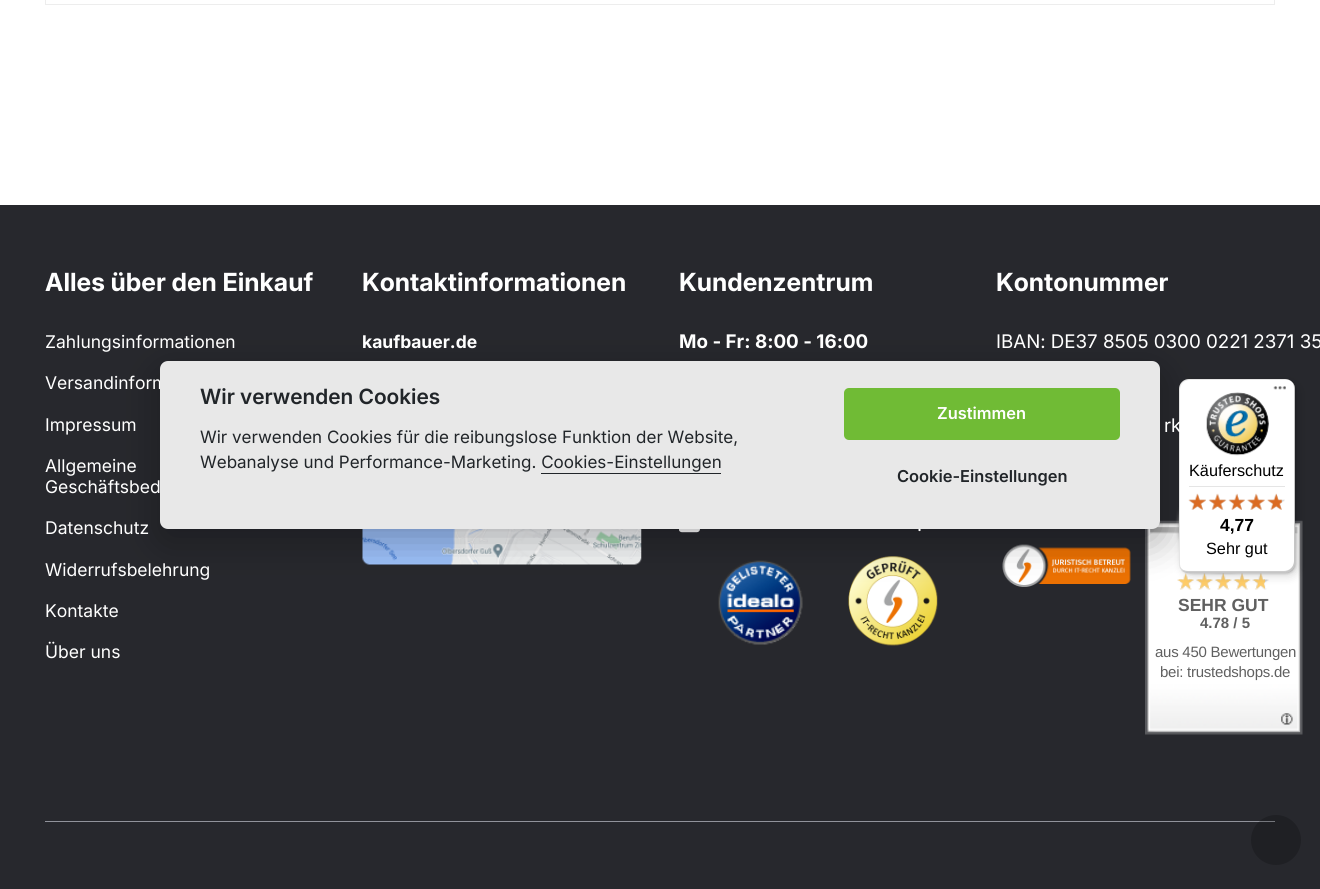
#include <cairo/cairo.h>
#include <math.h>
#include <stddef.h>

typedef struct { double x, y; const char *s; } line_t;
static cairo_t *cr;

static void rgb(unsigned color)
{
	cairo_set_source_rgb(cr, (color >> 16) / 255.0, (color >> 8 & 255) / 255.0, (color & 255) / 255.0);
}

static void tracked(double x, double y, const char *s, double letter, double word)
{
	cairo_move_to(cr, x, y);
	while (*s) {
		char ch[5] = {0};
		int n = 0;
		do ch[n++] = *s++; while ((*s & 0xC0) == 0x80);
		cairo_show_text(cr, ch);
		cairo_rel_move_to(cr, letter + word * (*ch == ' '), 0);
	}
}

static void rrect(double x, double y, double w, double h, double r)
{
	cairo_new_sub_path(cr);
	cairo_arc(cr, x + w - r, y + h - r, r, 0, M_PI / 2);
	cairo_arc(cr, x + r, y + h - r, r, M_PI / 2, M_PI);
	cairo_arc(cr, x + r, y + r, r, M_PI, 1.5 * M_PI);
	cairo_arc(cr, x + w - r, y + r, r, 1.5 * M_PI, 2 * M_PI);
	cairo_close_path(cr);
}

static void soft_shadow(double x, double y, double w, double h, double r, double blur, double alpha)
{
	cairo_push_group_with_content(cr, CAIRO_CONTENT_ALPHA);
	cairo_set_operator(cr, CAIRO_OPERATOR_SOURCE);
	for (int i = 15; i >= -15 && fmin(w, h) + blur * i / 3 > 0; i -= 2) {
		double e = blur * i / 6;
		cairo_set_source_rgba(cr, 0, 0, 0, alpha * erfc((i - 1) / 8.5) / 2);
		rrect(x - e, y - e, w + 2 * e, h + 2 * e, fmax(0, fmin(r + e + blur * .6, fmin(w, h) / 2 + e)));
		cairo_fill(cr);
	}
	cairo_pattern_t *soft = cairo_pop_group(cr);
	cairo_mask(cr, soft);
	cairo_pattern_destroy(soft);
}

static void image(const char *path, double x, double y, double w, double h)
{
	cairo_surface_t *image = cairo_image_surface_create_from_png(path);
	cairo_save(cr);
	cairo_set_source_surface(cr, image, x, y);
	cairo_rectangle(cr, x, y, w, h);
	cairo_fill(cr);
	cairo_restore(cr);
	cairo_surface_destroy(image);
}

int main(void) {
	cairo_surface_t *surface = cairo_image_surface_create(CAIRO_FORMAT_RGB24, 1320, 889);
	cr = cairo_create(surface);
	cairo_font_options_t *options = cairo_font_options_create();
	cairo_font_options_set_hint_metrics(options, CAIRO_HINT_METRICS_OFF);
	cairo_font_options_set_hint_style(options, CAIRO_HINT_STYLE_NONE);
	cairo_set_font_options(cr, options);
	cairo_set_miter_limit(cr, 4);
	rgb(0xffffff);
	cairo_paint(cr);
	cairo_rectangle(cr, 45.5, -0.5, 1229, 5);
	rgb(0xededed);
	cairo_set_line_width(cr, 1);
	cairo_stroke(cr);
	rgb(0x27282d);
	cairo_rectangle(cr, 0, 205, 1320, 684);
	cairo_fill(cr);
	image("img/1.png", 362, 529, 280, 36);
	image("img/2.png", 679, 529, 21, 4);
	image("img/3.png", 718, 560, 85, 85);
	image("img/4.png", 848, 556, 90, 90);
	image("img/5.png", 1002, 544, 129, 43);
	image("img/6.png", 1145, 507, 158, 228);
	image("img/7.png", 1177, 573, 88, 17);
	rgb(0x91939b);
	cairo_rectangle(cr, 45, 821, 1230, 1);
	cairo_fill(cr);
	rgb(0x020203);
	soft_shadow(160, 374, 1000, 167, 8, 19, 0.28);
	rgb(0x000000);
	soft_shadow(1183, 383, 116, 193, 10, 5, 0.15);
	soft_shadow(1180, 380, 116, 194, 10, 1, 0.15);
	rgb(0xffffff);
	rrect(1179, 379, 116, 194, 10);
	cairo_fill(cr);
	cairo_set_source_rgba(cr, 0, 0, 0, 0.1);
	cairo_new_path(cr);
	cairo_move_to(cr, 1190, 380);
	cairo_line_to(cr, 1286, 380);
	cairo_curve_to(cr, 1288, 380, 1290, 380, 1291, 381);
	cairo_curve_to(cr, 1290, 380, 1287, 379, 1285, 379);
	cairo_line_to(cr, 1189, 379);
	cairo_curve_to(cr, 1183, 379, 1179, 383, 1179, 389);
	cairo_line_to(cr, 1179, 563);
	cairo_curve_to(cr, 1179, 566, 1180, 569, 1183, 571);
	cairo_curve_to(cr, 1181, 569, 1180, 566, 1180, 564);
	cairo_line_to(cr, 1180, 390);
	cairo_curve_to(cr, 1180, 384, 1184, 380, 1190, 380);
	cairo_close_path(cr);
	cairo_fill(cr);
	cairo_set_source_rgba(cr, 0, 0, 0, 0.2);
	cairo_arc(cr, 1276, 840, 25, 0, 2 * M_PI);
	cairo_fill(cr);
	cairo_select_font_face(cr, "Inter", CAIRO_FONT_SLANT_NORMAL, CAIRO_FONT_WEIGHT_BOLD);
	cairo_set_font_size(cr, 25);
	rgb(0xffffff);
	cairo_move_to(cr, 45, 291);
	cairo_show_text(cr, "Alles über den Einkauf");
	cairo_select_font_face(cr, "Inter", CAIRO_FONT_SLANT_NORMAL, CAIRO_FONT_WEIGHT_NORMAL);
	cairo_set_font_size(cr, 17.5);
	{
		static const line_t items[] = {
			{45, 348, "Zahlungsinformationen"},
			{45, 389, "Versandinform"},
			{45, 431, "Impressum"},
			{45, 472, "Allgemeine"},
			{45, 493, "Geschäftsbed"},
			{45, 534, "Datenschutz"},
			{45, 576, "Widerrufsbelehrung"},
			{45, 617, "Kontakte"},
			{45, 658, "Über uns"},
		};
		for (size_t i = 0; i < sizeof items / sizeof *items; i++) {
			cairo_move_to(cr, items[i].x, items[i].y);
			cairo_show_text(cr, items[i].s);
		}
	}
	cairo_select_font_face(cr, "Inter", CAIRO_FONT_SLANT_NORMAL, CAIRO_FONT_WEIGHT_BOLD);
	cairo_set_font_size(cr, 25);
	cairo_move_to(cr, 362, 291);
	cairo_show_text(cr, "Kontaktinformationen");
	cairo_select_font_face(cr, "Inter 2", CAIRO_FONT_SLANT_NORMAL, CAIRO_FONT_WEIGHT_BOLD);
	cairo_set_font_size(cr, 17.5);
	cairo_move_to(cr, 362, 348);
	cairo_show_text(cr, "kaufbauer.de");
	cairo_select_font_face(cr, "Inter", CAIRO_FONT_SLANT_NORMAL, CAIRO_FONT_WEIGHT_BOLD);
	cairo_set_font_size(cr, 25);
	cairo_move_to(cr, 679, 291);
	cairo_show_text(cr, "Kundenzentrum");
	cairo_select_font_face(cr, "Inter 2", CAIRO_FONT_SLANT_NORMAL, CAIRO_FONT_WEIGHT_BOLD);
	cairo_set_font_size(cr, 18.75);
	cairo_move_to(cr, 679, 348);
	cairo_show_text(cr, "Mo - Fr: 8:00 - 16:00");
	cairo_select_font_face(cr, "Inter", CAIRO_FONT_SLANT_NORMAL, CAIRO_FONT_WEIGHT_NORMAL);
	cairo_set_font_size(cr, 17.5);
	cairo_move_to(cr, 917, 531);
	cairo_show_text(cr, ".");
	cairo_select_font_face(cr, "Inter", CAIRO_FONT_SLANT_NORMAL, CAIRO_FONT_WEIGHT_BOLD);
	cairo_set_font_size(cr, 25);
	cairo_move_to(cr, 996, 291);
	cairo_show_text(cr, "Kontonummer");
	cairo_select_font_face(cr, "Inter 2", CAIRO_FONT_SLANT_NORMAL, CAIRO_FONT_WEIGHT_NORMAL);
	cairo_set_font_size(cr, 18.75);
	cairo_move_to(cr, 996, 348);
	cairo_show_text(cr, "IBAN: DE37 8505 0300 0221 2371 35");
	cairo_move_to(cr, 1164, 432);
	cairo_show_text(cr, "rk");
	cairo_select_font_face(cr, "Liberation Sans", CAIRO_FONT_SLANT_NORMAL, CAIRO_FONT_WEIGHT_BOLD);
	cairo_set_font_size(cr, 17.5);
	rgb(0x606060);
	cairo_move_to(cr, 1178, 611);
	cairo_show_text(cr, "SEHR GUT");
	cairo_set_font_size(cr, 15);
	cairo_move_to(cr, 1200, 628);
	cairo_show_text(cr, "4.78 / 5");
	cairo_select_font_face(cr, "Liberation Sans", CAIRO_FONT_SLANT_NORMAL, CAIRO_FONT_WEIGHT_NORMAL);
	tracked(1155, 657, "aus 450 Bewertungen", -0.25, 0);
	tracked(1160, 677, "bei: trustedshops.de", -0.25, 0);
	rgb(0xe8e8e8);
	rrect(160, 361, 1000, 168, 8);
	cairo_fill(cr);
	cairo_select_font_face(cr, "Inter 2 SemiBold", CAIRO_FONT_SLANT_NORMAL, CAIRO_FONT_WEIGHT_NORMAL);
	cairo_set_font_size(cr, 21);
	rgb(0x212529);
	cairo_move_to(cr, 200, 404);
	cairo_show_text(cr, "Wir verwenden Cookies");
	cairo_select_font_face(cr, "Inter", CAIRO_FONT_SLANT_NORMAL, CAIRO_FONT_WEIGHT_NORMAL);
	cairo_set_font_size(cr, 17);
	cairo_move_to(cr, 200, 443);
	cairo_show_text(cr, "Wir verwenden Cookies für die reibungslose Funktion der Website,");
	cairo_move_to(cr, 200, 468);
	cairo_show_text(cr, "Webanalyse und Performance-Marketing. Cookies-Einstellungen");
	cairo_rectangle(cr, 541, 473, 180, 1);
	cairo_fill(cr);
	rgb(0x70bb35);
	rrect(844, 388, 276, 52, 5);
	cairo_fill(cr);
	cairo_select_font_face(cr, "Inter SemiBold", CAIRO_FONT_SLANT_NORMAL, CAIRO_FONT_WEIGHT_NORMAL);
	cairo_set_font_size(cr, 16.4);
	rgb(0xffffff);
	cairo_move_to(cr, 937, 419);
	cairo_show_text(cr, "Zustimmen");
	rgb(0x212529);
	cairo_move_to(cr, 897, 482);
	cairo_show_text(cr, "Cookie-Einstellungen");
	cairo_set_source_rgba(cr, 0, 0, 0, 0.2);
	cairo_new_path(cr);
	cairo_move_to(cr, 1180, 567);
	cairo_curve_to(cr, 1182, 571, 1185, 573, 1189, 573);
	cairo_line_to(cr, 1285, 573);
	cairo_curve_to(cr, 1291, 573, 1295, 569, 1295, 563);
	cairo_line_to(cr, 1295, 389);
	cairo_curve_to(cr, 1295, 386, 1294, 383, 1292, 381);
	cairo_curve_to(cr, 1293, 383, 1294, 385, 1294, 388);
	cairo_line_to(cr, 1294, 561);
	cairo_curve_to(cr, 1294, 567, 1289, 571, 1284, 571);
	cairo_line_to(cr, 1188, 571);
	cairo_curve_to(cr, 1185, 571, 1182, 570, 1180, 567);
	cairo_close_path(cr);
	cairo_fill(cr);
	cairo_set_source_rgba(cr, 0.196, 0.196, 0.196, 0.2);
	cairo_new_path(cr);
	cairo_move_to(cr, 1181, 570);
	cairo_curve_to(cr, 1183, 572, 1186, 573, 1189, 573);
	cairo_line_to(cr, 1285, 573);
	cairo_curve_to(cr, 1291, 573, 1295, 569, 1295, 563);
	cairo_line_to(cr, 1295, 389);
	cairo_curve_to(cr, 1295, 387, 1294, 384, 1293, 383);
	cairo_curve_to(cr, 1294, 384, 1294, 386, 1294, 388);
	cairo_line_to(cr, 1294, 562);
	cairo_curve_to(cr, 1294, 567, 1290, 572, 1284, 572);
	cairo_line_to(cr, 1188, 572);
	cairo_curve_to(cr, 1185, 572, 1183, 571, 1181, 570);
	cairo_close_path(cr);
	cairo_fill(cr);
	cairo_set_source_rgba(cr, 1, 1, 1, 0.3);
	cairo_new_path(cr);
	cairo_move_to(cr, 1180, 568);
	cairo_curve_to(cr, 1182, 571, 1185, 573, 1189, 573);
	cairo_line_to(cr, 1285, 573);
	cairo_curve_to(cr, 1291, 573, 1295, 569, 1295, 563);
	cairo_line_to(cr, 1295, 389);
	cairo_curve_to(cr, 1295, 386, 1294, 383, 1291, 381);
	cairo_curve_to(cr, 1293, 383, 1294, 386, 1294, 388);
	cairo_line_to(cr, 1294, 562);
	cairo_curve_to(cr, 1294, 567, 1290, 572, 1284, 572);
	cairo_line_to(cr, 1188, 572);
	cairo_curve_to(cr, 1185, 572, 1182, 570, 1180, 568);
	cairo_close_path(cr);
	cairo_fill(cr);
	image("img/8.png", 1273, 386, 13, 4);
	image("img/9.png", 1206, 392, 63, 64);
	cairo_select_font_face(cr, "Liberation Sans", CAIRO_FONT_SLANT_NORMAL, CAIRO_FONT_WEIGHT_NORMAL);
	cairo_set_font_size(cr, 16.25);
	rgb(0x000000);
	cairo_move_to(cr, 1189, 476);
	cairo_show_text(cr, "Käuferschutz");
	rgb(0xe5e5e5);
	cairo_rectangle(cr, 1189, 486, 96, 1);
	cairo_fill(cr);
	image("img/15.png", 1189, 494, 17, 16);
	image("img/10.png", 1188, 493, 18, 17);
	image("img/16.png", 1209, 494, 17, 16);
	image("img/11.png", 1208, 493, 19, 17);
	image("img/17.png", 1229, 494, 16, 16);
	image("img/12.png", 1228, 493, 17, 17);
	image("img/18.png", 1247, 494, 18, 16);
	image("img/13.png", 1247, 493, 18, 17);
	image("img/19.png", 1267, 494, 18, 16);
	image("img/14.png", 1267, 493, 15, 17);
	cairo_select_font_face(cr, "Liberation Sans", CAIRO_FONT_SLANT_NORMAL, CAIRO_FONT_WEIGHT_BOLD);
	cairo_set_font_size(cr, 17.5);
	rgb(0x000000);
	cairo_move_to(cr, 1220, 531);
	cairo_show_text(cr, "4,77");
	cairo_select_font_face(cr, "Liberation Sans", CAIRO_FONT_SLANT_NORMAL, CAIRO_FONT_WEIGHT_NORMAL);
	cairo_set_font_size(cr, 16.25);
	cairo_move_to(cr, 1206, 554);
	cairo_show_text(cr, "Sehr gut");
	cairo_surface_write_to_png(surface, "page.png");
	cairo_font_options_destroy(options);
	cairo_destroy(cr);
	cairo_surface_destroy(surface);
	return 0;
}
